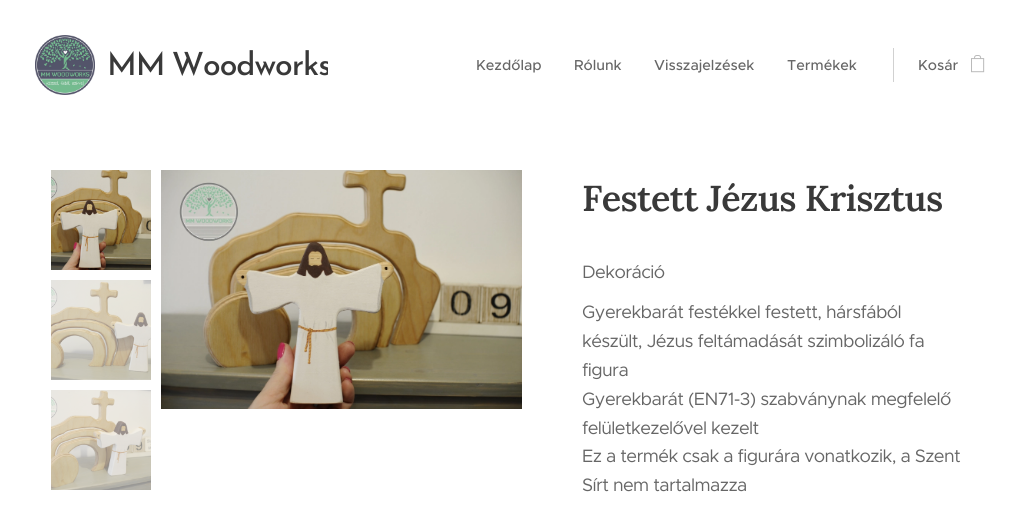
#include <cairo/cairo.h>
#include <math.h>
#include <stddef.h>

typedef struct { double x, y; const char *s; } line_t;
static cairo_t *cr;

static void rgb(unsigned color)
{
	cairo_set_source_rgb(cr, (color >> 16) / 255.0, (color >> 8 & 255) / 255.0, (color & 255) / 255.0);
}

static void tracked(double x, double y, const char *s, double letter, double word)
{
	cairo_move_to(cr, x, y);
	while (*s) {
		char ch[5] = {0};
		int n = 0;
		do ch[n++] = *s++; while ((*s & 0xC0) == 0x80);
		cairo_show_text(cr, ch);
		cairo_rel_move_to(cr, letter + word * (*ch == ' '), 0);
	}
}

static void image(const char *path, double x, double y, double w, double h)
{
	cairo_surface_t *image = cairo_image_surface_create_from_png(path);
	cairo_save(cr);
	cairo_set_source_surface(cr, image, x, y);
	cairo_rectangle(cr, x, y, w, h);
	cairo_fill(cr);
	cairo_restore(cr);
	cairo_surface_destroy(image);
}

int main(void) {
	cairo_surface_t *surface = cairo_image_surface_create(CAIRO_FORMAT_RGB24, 1031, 506);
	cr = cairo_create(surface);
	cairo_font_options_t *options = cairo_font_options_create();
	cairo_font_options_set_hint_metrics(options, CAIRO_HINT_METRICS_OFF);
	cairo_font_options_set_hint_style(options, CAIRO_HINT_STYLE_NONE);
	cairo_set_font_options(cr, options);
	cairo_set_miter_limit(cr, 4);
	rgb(0xffffff);
	cairo_paint(cr);
	image("img/1.png", 35, 35, 60, 60);
	rgb(0xd1d1d1);
	cairo_rectangle(cr, 893, 48, 1, 34);
	cairo_fill(cr);
	image("img/2.png", 971, 55, 14, 18);
	image("img/3.png", 51, 170, 100, 100);
	image("img/4.png", 51, 280, 100, 100);
	image("img/5.png", 51, 390, 100, 100);
	image("img/6.png", 161, 170, 361, 239);
	cairo_save(cr);
	cairo_rectangle(cr, 100, 41, 228, 48);
	cairo_clip(cr);
	cairo_select_font_face(cr, "Josefin Sans Medium", CAIRO_FONT_SLANT_NORMAL, CAIRO_FONT_WEIGHT_NORMAL);
	cairo_set_font_size(cr, 32);
	rgb(0x393939);
	tracked(107, 75, "MM Woodworks", -1, -2);
	cairo_restore(cr);
	cairo_select_font_face(cr, "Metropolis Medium", CAIRO_FONT_SLANT_NORMAL, CAIRO_FONT_WEIGHT_NORMAL);
	cairo_set_font_size(cr, 14.5);
	rgb(0x666666);
	{
		static const line_t items[] = {
			{476, 70, "Kezdőlap"},
			{574, 70, "Rólunk"},
			{654, 70, "Visszajelzések"},
			{787, 70, "Termékek"},
			{918, 70, "Kosár"},
		};
		for (size_t i = 0; i < sizeof items / sizeof *items; i++) {
			cairo_move_to(cr, items[i].x, items[i].y);
			cairo_show_text(cr, items[i].s);
		}
	}
	cairo_select_font_face(cr, "Lora SemiBold", CAIRO_FONT_SLANT_NORMAL, CAIRO_FONT_WEIGHT_NORMAL);
	cairo_set_font_size(cr, 36);
	rgb(0x393939);
	tracked(582, 211, "Festett Jézus Krisztus", -0.6, 0);
	cairo_select_font_face(cr, "Metropolis", CAIRO_FONT_SLANT_NORMAL, CAIRO_FONT_WEIGHT_NORMAL);
	cairo_set_font_size(cr, 18);
	rgb(0x666666);
	{
		static const line_t items[] = {
			{582, 278, "Dekoráció"},
			{582, 318, "Gyerekbarát festékkel festett, hársfából"},
			{582, 347, "készült, Jézus feltámadását szimbolizáló fa"},
			{582, 376, "figura"},
			{582, 405, "Gyerekbarát (EN71-3) szabványnak megfelelő"},
			{582, 434, "felületkezelővel kezelt"},
			{582, 462, "Ez a termék csak a figurára vonatkozik, a Szent"},
			{582, 491, "Sírt nem tartalmazza"},
		};
		for (size_t i = 0; i < sizeof items / sizeof *items; i++) {
			tracked(items[i].x, items[i].y, items[i].s, -0.6, 0);
		}
	}
	cairo_surface_write_to_png(surface, "page.png");
	cairo_font_options_destroy(options);
	cairo_destroy(cr);
	cairo_surface_destroy(surface);
	return 0;
}
